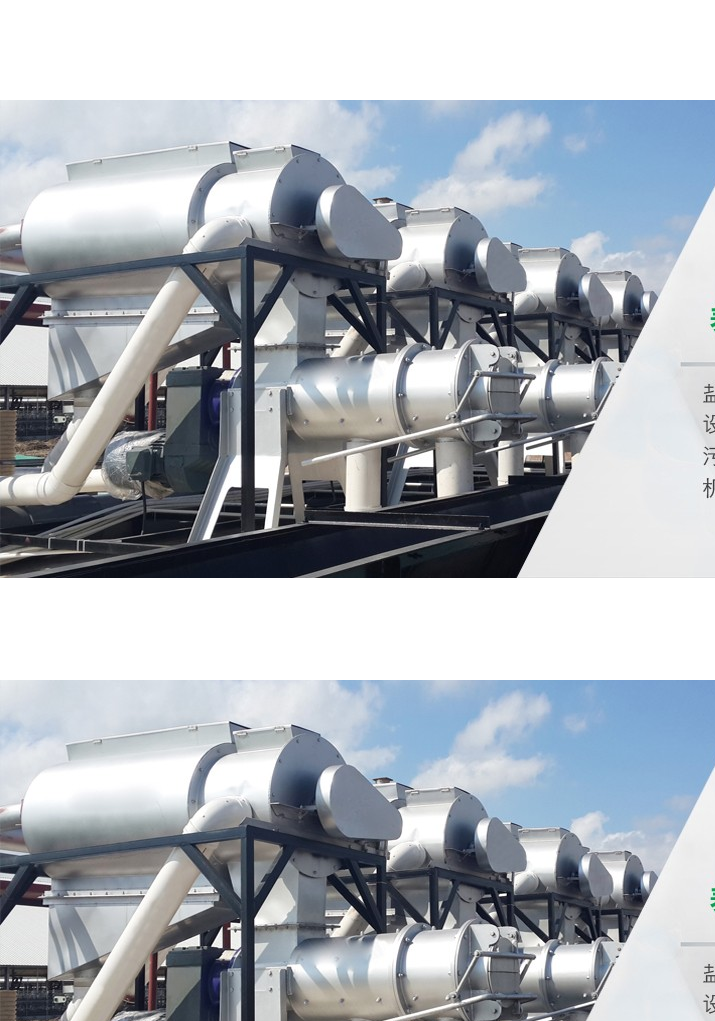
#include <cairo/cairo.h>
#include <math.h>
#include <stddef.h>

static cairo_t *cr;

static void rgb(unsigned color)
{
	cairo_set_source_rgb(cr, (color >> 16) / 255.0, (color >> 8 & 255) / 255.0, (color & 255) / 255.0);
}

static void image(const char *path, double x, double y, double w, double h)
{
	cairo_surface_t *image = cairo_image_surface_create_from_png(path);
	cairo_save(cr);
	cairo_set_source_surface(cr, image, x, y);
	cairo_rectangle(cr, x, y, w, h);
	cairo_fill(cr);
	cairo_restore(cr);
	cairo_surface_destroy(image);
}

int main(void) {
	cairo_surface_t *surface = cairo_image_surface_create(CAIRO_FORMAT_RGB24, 715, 1021);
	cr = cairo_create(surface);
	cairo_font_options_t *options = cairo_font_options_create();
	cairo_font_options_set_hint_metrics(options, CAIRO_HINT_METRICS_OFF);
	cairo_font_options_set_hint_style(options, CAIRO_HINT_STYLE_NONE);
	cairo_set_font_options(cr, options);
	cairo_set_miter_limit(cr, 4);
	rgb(0xffffff);
	cairo_paint(cr);
	image("img/1.png", 0, 100, 715, 478);
	image("img/2.png", 0, 680, 715, 341);
	cairo_surface_write_to_png(surface, "page.png");
	cairo_font_options_destroy(options);
	cairo_destroy(cr);
	cairo_surface_destroy(surface);
	return 0;
}
